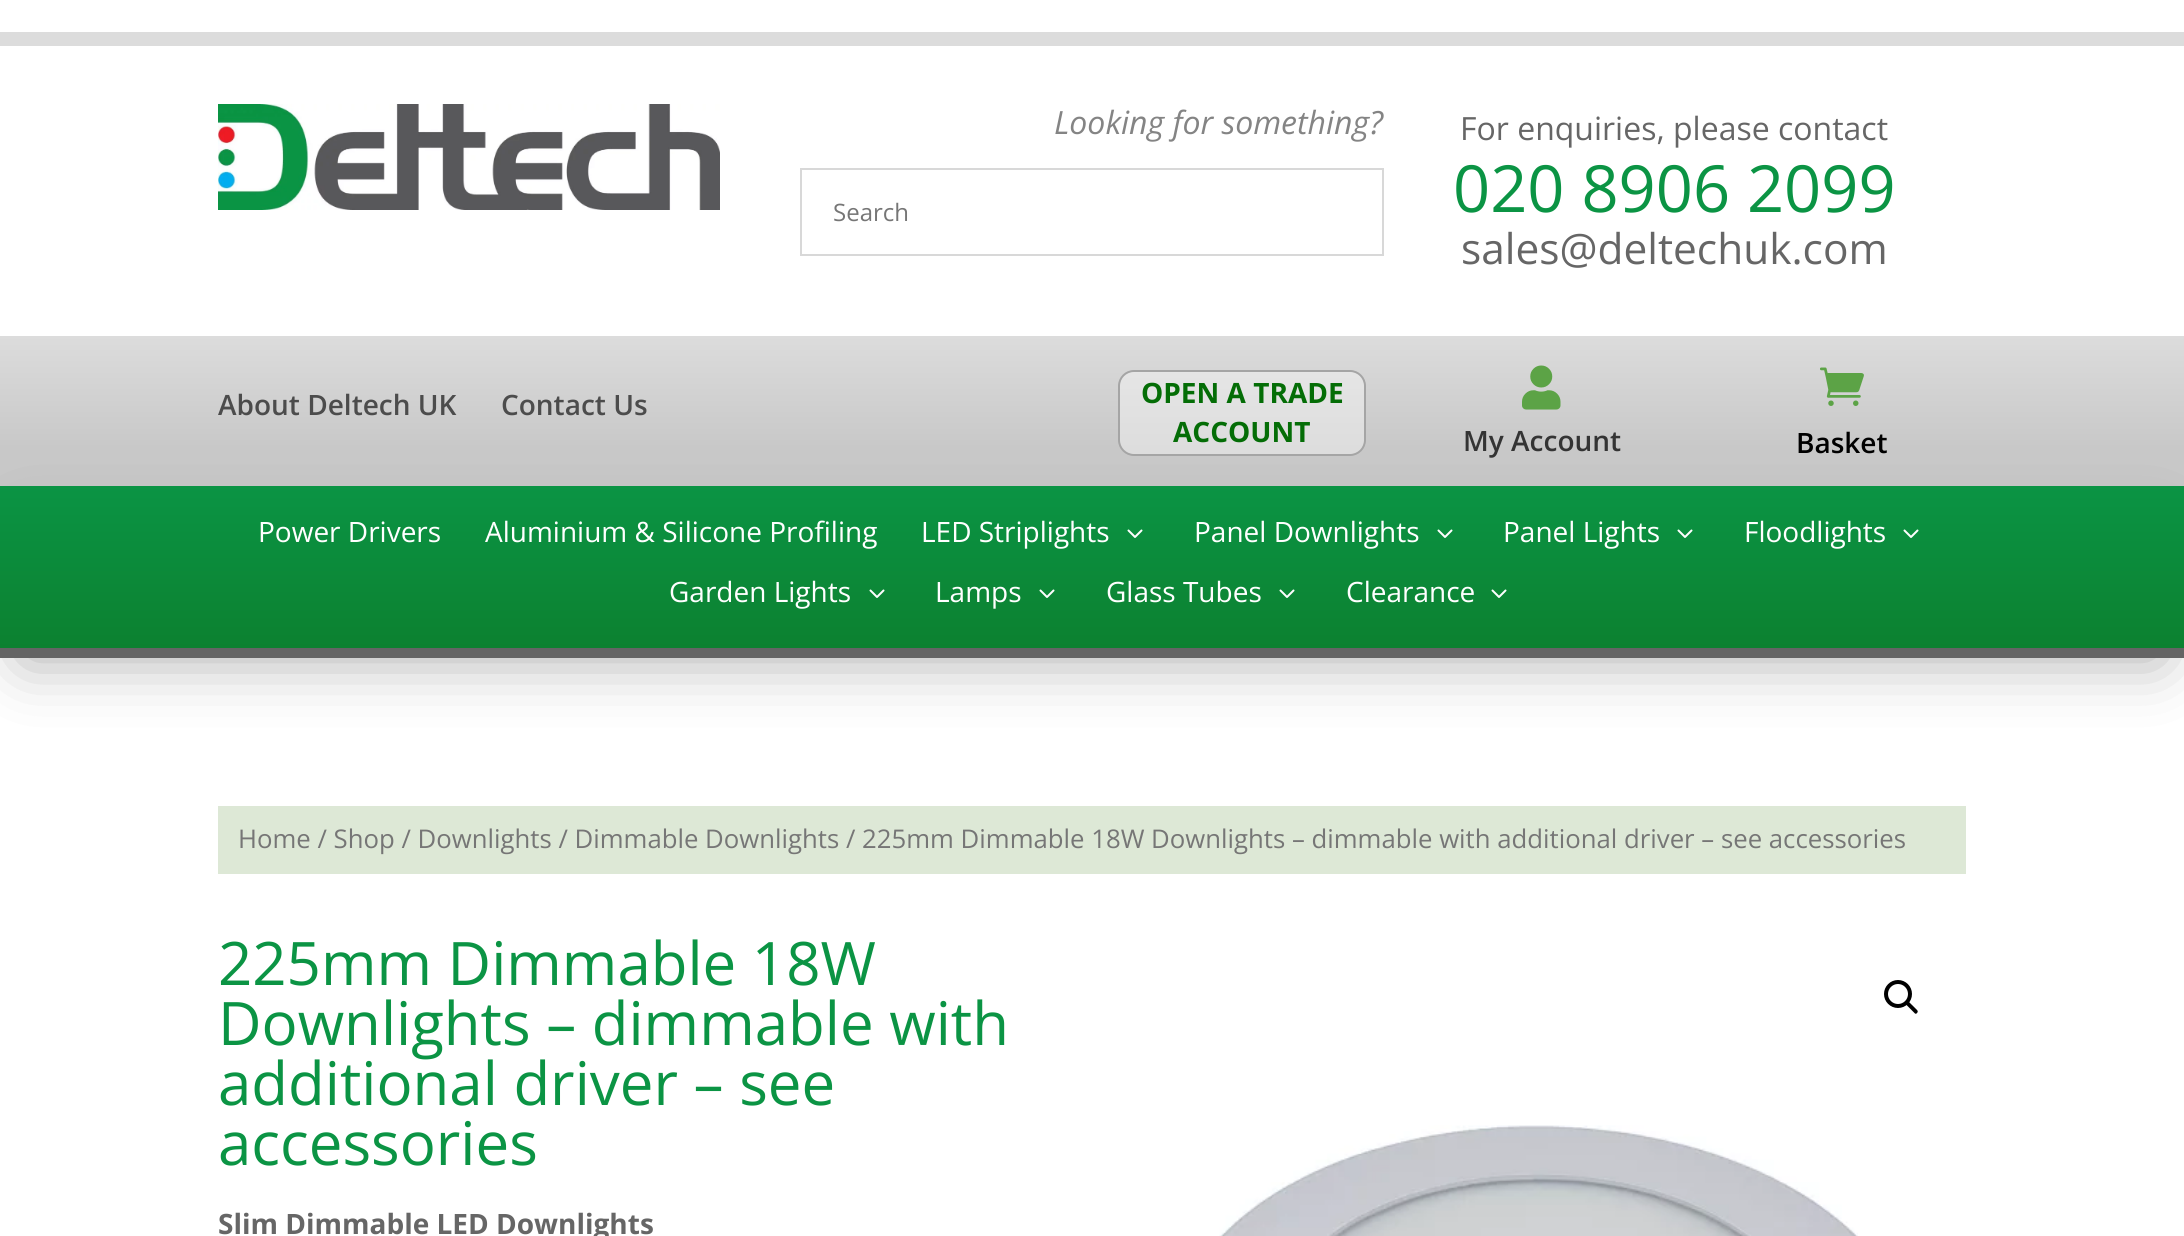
#include <cairo/cairo.h>
#include <math.h>
#include <stddef.h>

typedef struct { double x, y; const char *s; } line_t;
static cairo_t *cr;

static void rgb(unsigned color)
{
	cairo_set_source_rgb(cr, (color >> 16) / 255.0, (color >> 8 & 255) / 255.0, (color & 255) / 255.0);
}

static void rrect(double x, double y, double w, double h, double r)
{
	cairo_new_sub_path(cr);
	cairo_arc(cr, x + w - r, y + h - r, r, 0, M_PI / 2);
	cairo_arc(cr, x + r, y + h - r, r, M_PI / 2, M_PI);
	cairo_arc(cr, x + r, y + r, r, M_PI, 1.5 * M_PI);
	cairo_arc(cr, x + w - r, y + r, r, 1.5 * M_PI, 2 * M_PI);
	cairo_close_path(cr);
}

static void soft_shadow(double x, double y, double w, double h, double r, double blur, double alpha)
{
	cairo_push_group_with_content(cr, CAIRO_CONTENT_ALPHA);
	cairo_set_operator(cr, CAIRO_OPERATOR_SOURCE);
	for (int i = 15; i >= -15 && fmin(w, h) + blur * i / 3 > 0; i -= 2) {
		double e = blur * i / 6;
		cairo_set_source_rgba(cr, 0, 0, 0, alpha * erfc((i - 1) / 8.5) / 2);
		rrect(x - e, y - e, w + 2 * e, h + 2 * e, fmax(0, fmin(r + e + blur * .6, fmin(w, h) / 2 + e)));
		cairo_fill(cr);
	}
	cairo_pattern_t *soft = cairo_pop_group(cr);
	cairo_mask(cr, soft);
	cairo_pattern_destroy(soft);
}

static void image(const char *path, double x, double y, double w, double h)
{
	cairo_surface_t *image = cairo_image_surface_create_from_png(path);
	cairo_save(cr);
	cairo_set_source_surface(cr, image, x, y);
	cairo_rectangle(cr, x, y, w, h);
	cairo_fill(cr);
	cairo_restore(cr);
	cairo_surface_destroy(image);
}

int main(void) {
	cairo_surface_t *surface = cairo_image_surface_create(CAIRO_FORMAT_RGB24, 2184, 1236);
	cr = cairo_create(surface);
	cairo_font_options_t *options = cairo_font_options_create();
	cairo_font_options_set_hint_metrics(options, CAIRO_HINT_METRICS_OFF);
	cairo_font_options_set_hint_style(options, CAIRO_HINT_STYLE_NONE);
	cairo_set_font_options(cr, options);
	cairo_set_miter_limit(cr, 4);
	cairo_pattern_t *gradient;
	rgb(0xffffff);
	cairo_paint(cr);
	rgb(0xdcdcdc);
	cairo_rectangle(cr, 0, 32, 2184, 14);
	cairo_fill(cr);
	image("img/1.png", 218, 104, 502, 106);
	cairo_rectangle(cr, 801, 169, 582, 86);
	rgb(0xd8d8d8);
	cairo_stroke(cr);
	gradient = cairo_pattern_create_linear(1092, 336, 1092, 486);
	cairo_pattern_add_color_stop_rgba(gradient, 0, 0.863, 0.863, 0.863, 1);
	cairo_pattern_add_color_stop_rgba(gradient, 0.75, 0.784, 0.784, 0.784, 1);
	cairo_set_source(cr, gradient);
	cairo_pattern_destroy(gradient);
	cairo_rectangle(cr, 0, 336, 2184, 150);
	cairo_fill(cr);
	cairo_set_source_rgba(cr, 1, 1, 1, 0.38);
	rrect(1119, 371, 246, 84, 15);
	cairo_fill_preserve(cr);
	rgb(0xa5a5a5);
	cairo_stroke(cr);
	image("img/2.png", 1522, 365, 39, 45);
	image("img/3.png", 1820, 367, 44, 39);
	rgb(0x000000);
	soft_shadow(24, 534, 2136, 124, 0, 32, 0.35);
	gradient = cairo_pattern_create_linear(1092, 486, 1092, 648);
	cairo_pattern_add_color_stop_rgba(gradient, 0, 0.043, 0.58, 0.267, 1);
	cairo_pattern_add_color_stop_rgba(gradient, 1, 0.047, 0.506, 0.188, 1);
	cairo_set_source(cr, gradient);
	cairo_pattern_destroy(gradient);
	cairo_rectangle(cr, 0, 486, 2184, 162);
	cairo_fill(cr);
	rgb(0x646464);
	cairo_rectangle(cr, 0, 648, 2184, 10);
	cairo_fill(cr);
	image("img/4.png", 1127, 529, 16, 9);
	image("img/4.png", 1437, 529, 16, 9);
	image("img/4.png", 1677, 529, 16, 9);
	image("img/4.png", 1903, 529, 16, 9);
	image("img/5.png", 869, 589, 16, 9);
	image("img/5.png", 1039, 589, 16, 9);
	image("img/5.png", 1279, 589, 16, 9);
	image("img/5.png", 1491, 589, 16, 9);
	rgb(0xdde8d6);
	cairo_rectangle(cr, 218, 806, 1748, 68);
	cairo_fill(cr);
	cairo_arc(cr, 1898, 994, 12, 0, 2 * M_PI);
	rgb(0x000000);
	cairo_set_line_width(cr, 4);
	cairo_stroke(cr);
	cairo_new_path(cr);
	cairo_move_to(cr, 1906, 1001.5);
	cairo_curve_to(cr, 1906.5, 1001, 1908, 1001, 1908.5, 1001.5);
	cairo_line_to(cr, 1917, 1010);
	cairo_curve_to(cr, 1918, 1011, 1918, 1012, 1917, 1013);
	cairo_curve_to(cr, 1916.5, 1014, 1915, 1014, 1914.5, 1013);
	cairo_line_to(cr, 1906, 1004.5);
	cairo_curve_to(cr, 1905, 1003.5, 1905, 1002.5, 1906, 1001.5);
	cairo_close_path(cr);
	cairo_fill(cr);
	image("img/6.png", 1219, 1125, 639, 111);
	cairo_select_font_face(cr, "Open Sans", CAIRO_FONT_SLANT_ITALIC, CAIRO_FONT_WEIGHT_NORMAL);
	cairo_set_font_size(cr, 32);
	rgb(0x848484);
	cairo_move_to(cr, 1054, 134);
	cairo_show_text(cr, "Looking for something?");
	cairo_select_font_face(cr, "Open Sans", CAIRO_FONT_SLANT_NORMAL, CAIRO_FONT_WEIGHT_NORMAL);
	cairo_set_font_size(cr, 24);
	rgb(0x767676);
	cairo_move_to(cr, 833, 221);
	cairo_show_text(cr, "Search");
	cairo_set_font_size(cr, 32);
	rgb(0x666666);
	cairo_move_to(cr, 1460, 140);
	cairo_show_text(cr, "For enquiries, please contact");
	cairo_set_font_size(cr, 65);
	rgb(0x0b9444);
	cairo_move_to(cr, 1453, 212);
	cairo_show_text(cr, "020 8906 2099");
	cairo_set_font_size(cr, 42.4);
	rgb(0x666666);
	cairo_move_to(cr, 1461, 264);
	cairo_show_text(cr, "sales@deltechuk.com");
	cairo_select_font_face(cr, "Open Sans SemiBold", CAIRO_FONT_SLANT_NORMAL, CAIRO_FONT_WEIGHT_NORMAL);
	cairo_set_font_size(cr, 28);
	rgb(0x4c4c4c);
	cairo_move_to(cr, 218, 415);
	cairo_show_text(cr, "About Deltech UK");
	cairo_move_to(cr, 501, 415);
	cairo_show_text(cr, "Contact Us");
	cairo_select_font_face(cr, "Open Sans", CAIRO_FONT_SLANT_NORMAL, CAIRO_FONT_WEIGHT_BOLD);
	rgb(0x046d06);
	cairo_move_to(cr, 1141, 403);
	cairo_show_text(cr, "OPEN A TRADE");
	cairo_move_to(cr, 1173, 442);
	cairo_show_text(cr, "ACCOUNT");
	cairo_select_font_face(cr, "Open Sans SemiBold", CAIRO_FONT_SLANT_NORMAL, CAIRO_FONT_WEIGHT_NORMAL);
	rgb(0x343434);
	cairo_move_to(cr, 1463, 451);
	cairo_show_text(cr, "My Account");
	rgb(0x000000);
	cairo_move_to(cr, 1796, 453);
	cairo_show_text(cr, "Basket");
	cairo_select_font_face(cr, "Open Sans", CAIRO_FONT_SLANT_NORMAL, CAIRO_FONT_WEIGHT_NORMAL);
	rgb(0xffffff);
	{
		static const line_t items[] = {
			{258, 542, "Power Drivers"},
			{485, 542, "Aluminium & Silicone Profiling"},
			{921, 542, "LED Striplights"},
			{1194, 542, "Panel Downlights"},
			{1503, 542, "Panel Lights"},
			{1744, 542, "Floodlights"},
			{669, 602, "Garden Lights"},
			{935, 602, "Lamps"},
			{1106, 602, "Glass Tubes"},
			{1346, 602, "Clearance"},
		};
		for (size_t i = 0; i < sizeof items / sizeof *items; i++) {
			cairo_move_to(cr, items[i].x, items[i].y);
			cairo_show_text(cr, items[i].s);
		}
	}
	cairo_set_font_size(cr, 25.75);
	rgb(0x767676);
	cairo_move_to(cr, 238, 848);
	cairo_show_text(cr, "Home / Shop / Downlights / Dimmable Downlights / 225mm Dimmable 18W Downlights – dimmable with additional driver – see accessories");
	cairo_set_font_size(cr, 60);
	rgb(0x0b9444);
	{
		static const line_t items[] = {
			{218, 985, "225mm Dimmable 18W"},
			{218, 1045, "Downlights – dimmable with"},
			{218, 1105, "additional driver – see"},
			{218, 1165, "accessories"},
		};
		for (size_t i = 0; i < sizeof items / sizeof *items; i++) {
			cairo_move_to(cr, items[i].x, items[i].y);
			cairo_show_text(cr, items[i].s);
		}
	}
	cairo_select_font_face(cr, "Open Sans", CAIRO_FONT_SLANT_NORMAL, CAIRO_FONT_WEIGHT_BOLD);
	cairo_set_font_size(cr, 28);
	rgb(0x666666);
	cairo_move_to(cr, 218, 1234);
	cairo_show_text(cr, "Slim Dimmable LED Downlights");
	cairo_surface_write_to_png(surface, "page.png");
	cairo_font_options_destroy(options);
	cairo_destroy(cr);
	cairo_surface_destroy(surface);
	return 0;
}
